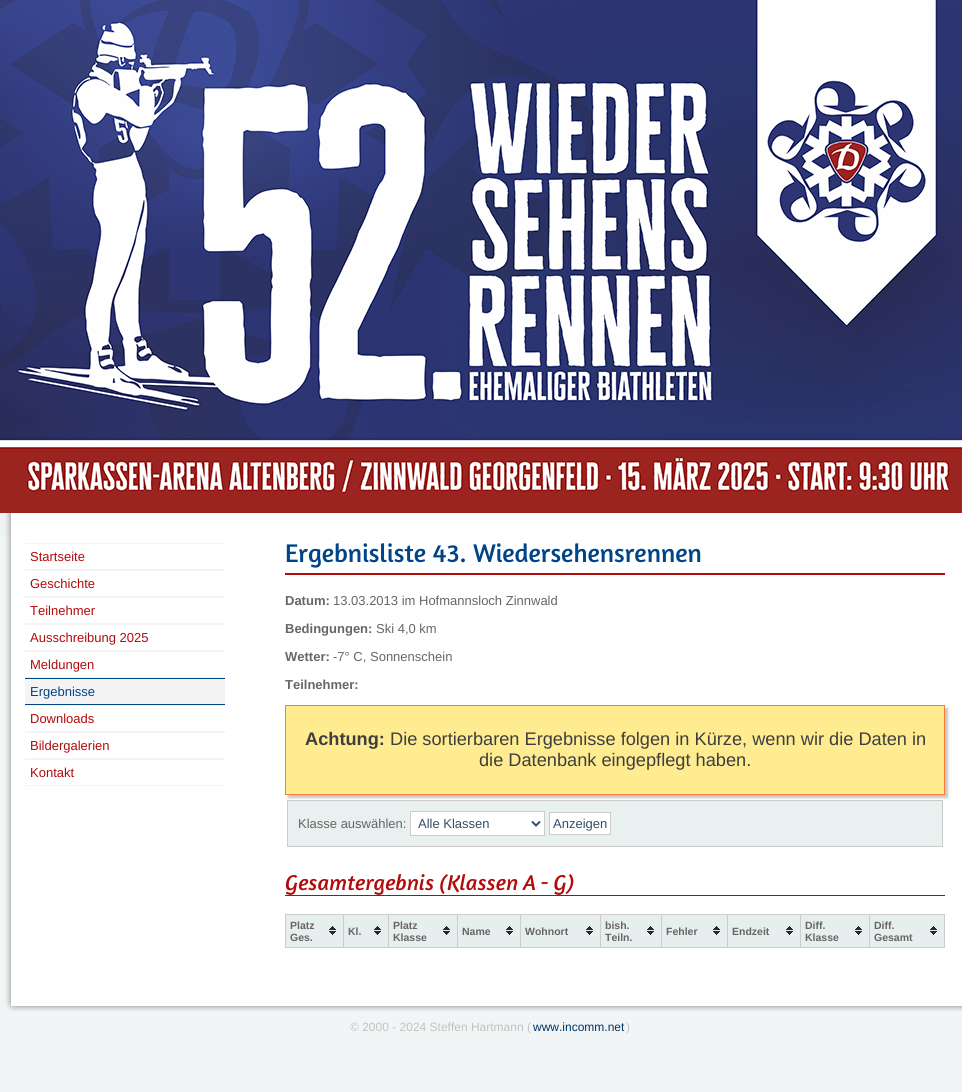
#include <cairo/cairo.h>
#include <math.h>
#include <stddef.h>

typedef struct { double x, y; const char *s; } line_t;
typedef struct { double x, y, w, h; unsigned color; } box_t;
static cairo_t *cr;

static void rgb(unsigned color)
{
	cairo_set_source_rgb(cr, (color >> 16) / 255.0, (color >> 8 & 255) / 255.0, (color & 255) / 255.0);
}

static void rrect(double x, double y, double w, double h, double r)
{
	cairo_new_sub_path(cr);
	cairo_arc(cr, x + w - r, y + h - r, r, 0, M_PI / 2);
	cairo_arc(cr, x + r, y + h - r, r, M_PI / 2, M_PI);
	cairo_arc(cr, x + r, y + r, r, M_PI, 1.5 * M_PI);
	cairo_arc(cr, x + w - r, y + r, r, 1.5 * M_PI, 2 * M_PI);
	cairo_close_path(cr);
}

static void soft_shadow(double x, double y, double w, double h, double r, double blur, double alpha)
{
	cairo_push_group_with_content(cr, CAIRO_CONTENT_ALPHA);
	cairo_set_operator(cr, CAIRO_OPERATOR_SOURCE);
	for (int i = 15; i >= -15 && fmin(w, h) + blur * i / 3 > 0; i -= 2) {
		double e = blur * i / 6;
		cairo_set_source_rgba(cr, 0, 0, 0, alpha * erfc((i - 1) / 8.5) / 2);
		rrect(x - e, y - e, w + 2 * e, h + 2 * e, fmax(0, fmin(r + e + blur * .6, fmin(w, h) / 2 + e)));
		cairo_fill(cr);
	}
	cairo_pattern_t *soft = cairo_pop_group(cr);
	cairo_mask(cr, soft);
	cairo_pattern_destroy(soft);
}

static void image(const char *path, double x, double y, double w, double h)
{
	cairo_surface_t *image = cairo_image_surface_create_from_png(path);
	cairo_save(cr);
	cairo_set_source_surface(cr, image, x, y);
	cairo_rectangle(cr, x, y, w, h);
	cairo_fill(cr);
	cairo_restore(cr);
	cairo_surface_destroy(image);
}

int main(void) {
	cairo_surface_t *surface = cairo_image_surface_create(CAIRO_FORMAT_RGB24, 962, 1092);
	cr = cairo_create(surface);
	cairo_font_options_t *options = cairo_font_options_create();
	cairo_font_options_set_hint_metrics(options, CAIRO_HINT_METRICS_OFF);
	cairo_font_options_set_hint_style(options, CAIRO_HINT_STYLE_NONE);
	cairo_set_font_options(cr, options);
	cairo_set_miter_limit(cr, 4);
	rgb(0xf2f5f6);
	cairo_paint(cr);
	image("img/1.png", 0, 513, 11, 22);
	image("img/2.png", 0, 0, 962, 513);
	image("img/3.png", 5, 513, 957, 475);
	{
		static const box_t items[] = {
			{25, 543, 200, 1, 0xf4f4f4},
			{25, 569, 200, 2, 0xf4f4f4},
			{25, 596, 200, 2, 0xf4f4f4},
			{25, 623, 200, 2, 0xf4f4f4},
			{25, 650, 200, 2, 0xf4f4f4},
			{25, 677, 200, 1, 0xf4f4f4},
			{25, 679, 200, 25, 0xf4f4f4},
			{25, 678, 200, 1, 0x004488},
			{25, 704, 200, 1, 0x004488},
			{25, 705, 200, 1, 0xf4f4f4},
			{25, 731, 200, 2, 0xf4f4f4},
			{25, 758, 200, 2, 0xf4f4f4},
			{25, 785, 200, 1, 0xf4f4f4},
			{285, 573, 660, 2, 0xb10b0b},
		};
		for (size_t i = 0; i < sizeof items / sizeof *items; i++) {
			rgb(items[i].color);
			cairo_rectangle(cr, items[i].x, items[i].y, items[i].w, items[i].h);
			cairo_fill(cr);
		}
	}
	rgb(0xc8c8c8);
	soft_shadow(288, 708, 660, 90, 0, 1, 1);
	rgb(0xffeb90);
	cairo_rectangle(cr, 285.5, 705.5, 659, 89);
	cairo_fill_preserve(cr);
	rgb(0xfc7c37);
	cairo_set_line_width(cr, 1);
	cairo_stroke(cr);
	rgb(0xe9f0f0);
	cairo_rectangle(cr, 287.5, 800.5, 655, 46);
	cairo_fill_preserve(cr);
	rgb(0xcccccc);
	cairo_stroke(cr);
	rgb(0xffffff);
	cairo_rectangle(cr, 410.5, 811.5, 134, 24);
	cairo_fill_preserve(cr);
	rgb(0xcccccc);
	cairo_stroke(cr);
	cairo_new_path(cr);
	cairo_move_to(cr, 532, 821.5);
	cairo_line_to(cr, 536, 825.5);
	cairo_line_to(cr, 540, 821.5);
	rgb(0x334d66);
	cairo_set_line_width(cr, 2);
	cairo_stroke(cr);
	rgb(0xffffff);
	cairo_rectangle(cr, 549.5, 812.5, 61, 22);
	cairo_fill_preserve(cr);
	rgb(0xcccccc);
	cairo_set_line_width(cr, 1);
	cairo_stroke(cr);
	{
		static const box_t items[] = {
			{285, 895, 660, 1, 0xb10b0b},
			{285, 915, 659, 33, 0xcdcdcd},
			{285, 914, 660, 1, 0xcccccc},
			{944, 914, 1, 34, 0xcccccc},
			{286, 915, 57, 32, 0xe6eeee},
		};
		for (size_t i = 0; i < sizeof items / sizeof *items; i++) {
			rgb(items[i].color);
			cairo_rectangle(cr, items[i].x, items[i].y, items[i].w, items[i].h);
			cairo_fill(cr);
		}
	}
	image("img/4.png", 329, 926, 7, 9);
	cairo_rectangle(cr, 344, 915, 44, 32);
	cairo_fill(cr);
	image("img/4.png", 374, 926, 7, 9);
	cairo_rectangle(cr, 389, 915, 68, 32);
	cairo_fill(cr);
	image("img/4.png", 443, 926, 7, 9);
	cairo_rectangle(cr, 458, 915, 62, 32);
	cairo_fill(cr);
	image("img/4.png", 506, 926, 7, 9);
	cairo_rectangle(cr, 521, 915, 79, 32);
	cairo_fill(cr);
	image("img/4.png", 586, 926, 7, 9);
	cairo_rectangle(cr, 601, 915, 60, 32);
	cairo_fill(cr);
	image("img/4.png", 647, 926, 7, 9);
	cairo_rectangle(cr, 662, 915, 65, 32);
	cairo_fill(cr);
	image("img/4.png", 713, 926, 7, 9);
	cairo_rectangle(cr, 728, 915, 72, 32);
	cairo_fill(cr);
	image("img/4.png", 786, 926, 7, 9);
	cairo_rectangle(cr, 801, 915, 68, 32);
	cairo_fill(cr);
	image("img/4.png", 855, 926, 7, 9);
	cairo_rectangle(cr, 870, 915, 74, 32);
	cairo_fill(cr);
	image("img/4.png", 930, 926, 7, 9);
	image("img/5.png", 5, 988, 957, 24);
	cairo_select_font_face(cr, "Liberation Sans", CAIRO_FONT_SLANT_NORMAL, CAIRO_FONT_WEIGHT_NORMAL);
	cairo_set_font_size(cr, 13);
	rgb(0xb10b0b);
	{
		static const line_t items[] = {
			{30, 561, "Startseite"},
			{30, 588, "Geschichte"},
			{30, 615, "Teilnehmer"},
			{30, 642, "Ausschreibung 2025"},
			{30, 669, "Meldungen"},
		};
		for (size_t i = 0; i < sizeof items / sizeof *items; i++) {
			cairo_move_to(cr, items[i].x, items[i].y);
			cairo_show_text(cr, items[i].s);
		}
	}
	rgb(0x004488);
	cairo_move_to(cr, 30, 696);
	cairo_show_text(cr, "Ergebnisse");
	rgb(0xb10b0b);
	{
		static const line_t items[] = {
			{30, 723, "Downloads"},
			{30, 750, "Bildergalerien"},
			{30, 777, "Kontakt"},
		};
		for (size_t i = 0; i < sizeof items / sizeof *items; i++) {
			cairo_move_to(cr, items[i].x, items[i].y);
			cairo_show_text(cr, items[i].s);
		}
	}
	cairo_select_font_face(cr, "Amaranth", CAIRO_FONT_SLANT_NORMAL, CAIRO_FONT_WEIGHT_NORMAL);
	cairo_set_font_size(cr, 26);
	rgb(0x004488);
	cairo_move_to(cr, 285, 562);
	cairo_show_text(cr, "Ergebnisliste 43. Wiedersehensrennen");
	cairo_select_font_face(cr, "Liberation Sans", CAIRO_FONT_SLANT_NORMAL, CAIRO_FONT_WEIGHT_BOLD);
	cairo_set_font_size(cr, 13);
	rgb(0x666666);
	cairo_move_to(cr, 285, 605);
	cairo_show_text(cr, "Datum:");
	cairo_select_font_face(cr, "Liberation Sans", CAIRO_FONT_SLANT_NORMAL, CAIRO_FONT_WEIGHT_NORMAL);
	cairo_move_to(cr, 333, 605);
	cairo_show_text(cr, "13.03.2013 im Hofmannsloch Zinnwald");
	cairo_select_font_face(cr, "Liberation Sans", CAIRO_FONT_SLANT_NORMAL, CAIRO_FONT_WEIGHT_BOLD);
	cairo_move_to(cr, 285, 633);
	cairo_show_text(cr, "Bedingungen:");
	cairo_select_font_face(cr, "Liberation Sans", CAIRO_FONT_SLANT_NORMAL, CAIRO_FONT_WEIGHT_NORMAL);
	cairo_move_to(cr, 376, 633);
	cairo_show_text(cr, "Ski 4,0 km");
	cairo_select_font_face(cr, "Liberation Sans", CAIRO_FONT_SLANT_NORMAL, CAIRO_FONT_WEIGHT_BOLD);
	cairo_move_to(cr, 285, 661);
	cairo_show_text(cr, "Wetter:");
	cairo_select_font_face(cr, "Liberation Sans", CAIRO_FONT_SLANT_NORMAL, CAIRO_FONT_WEIGHT_NORMAL);
	cairo_move_to(cr, 333, 661);
	cairo_show_text(cr, "-7° C, Sonnenschein");
	cairo_select_font_face(cr, "Liberation Sans", CAIRO_FONT_SLANT_NORMAL, CAIRO_FONT_WEIGHT_BOLD);
	cairo_move_to(cr, 285, 689);
	cairo_show_text(cr, "Teilnehmer:");
	cairo_set_font_size(cr, 18.2);
	rgb(0x3e3e3e);
	cairo_move_to(cr, 305, 745);
	cairo_show_text(cr, "Achtung:");
	cairo_select_font_face(cr, "Liberation Sans", CAIRO_FONT_SLANT_NORMAL, CAIRO_FONT_WEIGHT_NORMAL);
	cairo_move_to(cr, 390, 745);
	cairo_show_text(cr, "Die sortierbaren Ergebnisse folgen in Kürze, wenn wir die Daten in");
	cairo_move_to(cr, 479, 766);
	cairo_show_text(cr, "die Datenbank eingepflegt haben.");
	cairo_set_font_size(cr, 13);
	rgb(0x666666);
	cairo_move_to(cr, 298, 828);
	cairo_show_text(cr, "Klasse auswählen:");
	rgb(0x334d66);
	cairo_move_to(cr, 418, 828);
	cairo_show_text(cr, "Alle Klassen");
	cairo_move_to(cr, 553, 828);
	cairo_show_text(cr, "Anzeigen");
	cairo_select_font_face(cr, "Amaranth", CAIRO_FONT_SLANT_ITALIC, CAIRO_FONT_WEIGHT_NORMAL);
	cairo_set_font_size(cr, 22.1);
	rgb(0xb10b0b);
	cairo_move_to(cr, 285, 890);
	cairo_show_text(cr, "Gesamtergebnis (Klassen A - G)");
	cairo_select_font_face(cr, "Liberation Sans", CAIRO_FONT_SLANT_NORMAL, CAIRO_FONT_WEIGHT_BOLD);
	cairo_set_font_size(cr, 10.5);
	rgb(0x666666);
	{
		static const line_t items[] = {
			{290, 929, "Platz"},
			{290, 941, "Ges."},
			{348, 935, "Kl."},
			{393, 929, "Platz"},
			{393, 941, "Klasse"},
			{462, 935, "Name"},
			{525, 935, "Wohnort"},
			{605, 929, "bish."},
			{605, 941, "Teiln."},
			{666, 935, "Fehler"},
			{732, 935, "Endzeit"},
			{805, 929, "Diff."},
			{805, 941, "Klasse"},
			{874, 929, "Diff."},
			{874, 941, "Gesamt"},
		};
		for (size_t i = 0; i < sizeof items / sizeof *items; i++) {
			cairo_move_to(cr, items[i].x, items[i].y);
			cairo_show_text(cr, items[i].s);
		}
	}
	cairo_select_font_face(cr, "Liberation Sans", CAIRO_FONT_SLANT_NORMAL, CAIRO_FONT_WEIGHT_NORMAL);
	cairo_set_font_size(cr, 12);
	rgb(0xc1c1c1);
	cairo_move_to(cr, 350, 1031);
	cairo_show_text(cr, "© 2000 - 2024 Steffen Hartmann (");
	rgb(0x003366);
	cairo_move_to(cr, 533, 1031);
	cairo_show_text(cr, "www.incomm.net");
	rgb(0xc1c1c1);
	cairo_move_to(cr, 626, 1031);
	cairo_show_text(cr, ")");
	cairo_surface_write_to_png(surface, "page.png");
	cairo_font_options_destroy(options);
	cairo_destroy(cr);
	cairo_surface_destroy(surface);
	return 0;
}
